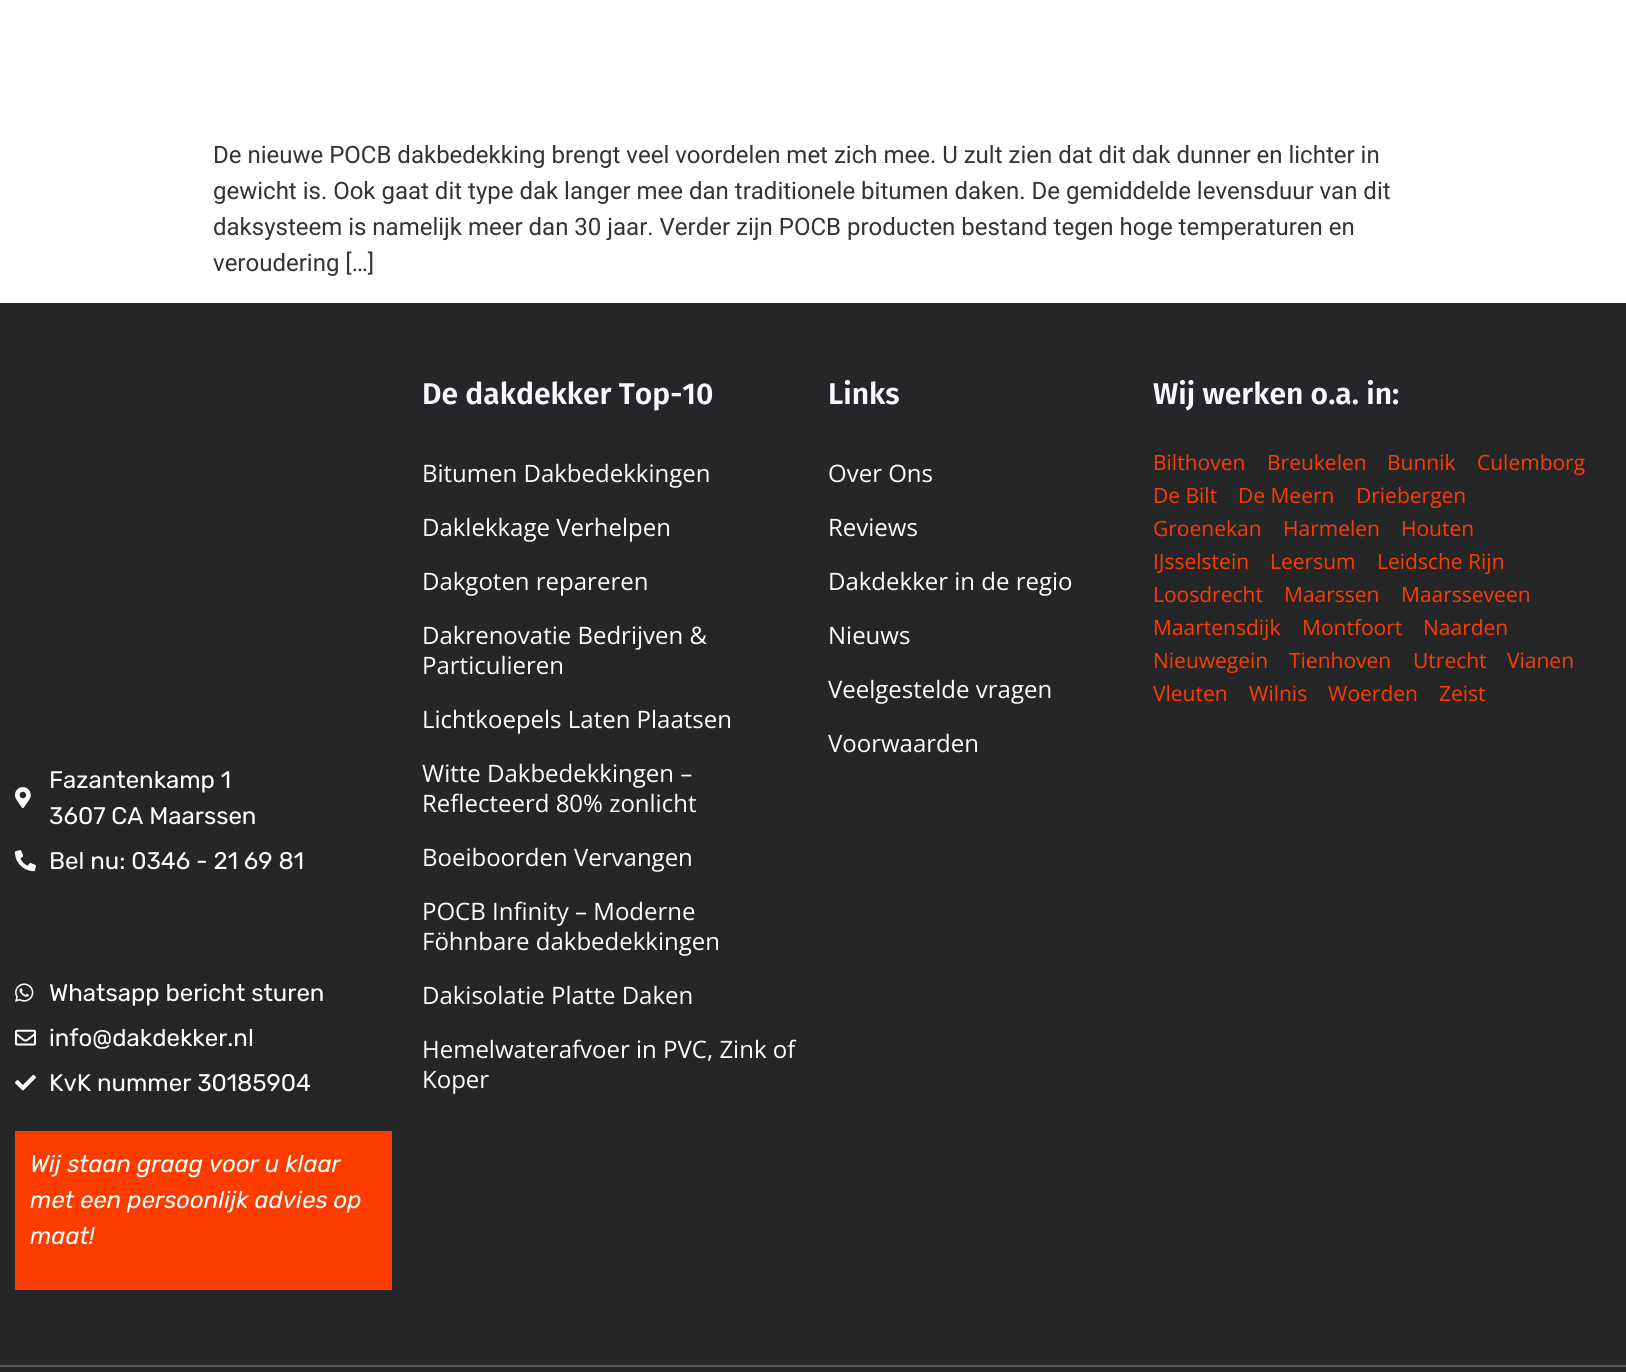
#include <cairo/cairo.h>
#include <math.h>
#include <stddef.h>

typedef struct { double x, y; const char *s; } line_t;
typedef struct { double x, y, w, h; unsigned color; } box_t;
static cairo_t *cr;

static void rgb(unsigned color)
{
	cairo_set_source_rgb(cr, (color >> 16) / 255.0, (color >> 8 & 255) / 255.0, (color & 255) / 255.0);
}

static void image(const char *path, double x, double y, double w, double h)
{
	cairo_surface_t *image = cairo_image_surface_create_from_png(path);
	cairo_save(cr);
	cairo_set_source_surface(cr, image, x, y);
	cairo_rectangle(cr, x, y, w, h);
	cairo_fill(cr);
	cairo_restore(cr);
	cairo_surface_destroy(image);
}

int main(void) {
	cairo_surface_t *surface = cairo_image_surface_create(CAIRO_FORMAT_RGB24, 1626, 1372);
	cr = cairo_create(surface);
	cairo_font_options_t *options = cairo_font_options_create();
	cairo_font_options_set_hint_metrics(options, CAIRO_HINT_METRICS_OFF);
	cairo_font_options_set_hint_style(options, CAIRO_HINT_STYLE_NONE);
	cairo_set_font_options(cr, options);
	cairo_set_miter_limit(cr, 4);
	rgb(0xffffff);
	cairo_paint(cr);
	rgb(0x252628);
	cairo_rectangle(cr, 0, 303, 1626, 1062);
	cairo_fill(cr);
	image("img/1.png", 15, 787, 16, 22);
	image("img/2.png", 15, 850, 21, 22);
	image("img/3.png", 15, 983, 19, 19);
	image("img/4.png", 15, 1029, 21, 17);
	image("img/5.png", 15, 1074, 21, 17);
	{
		static const box_t items[] = {
			{15, 1131, 377, 159, 0xff3c00},
			{0, 1367, 1626, 5, 0x252628},
			{0, 1365, 1626, 2, 0x575859},
		};
		for (size_t i = 0; i < sizeof items / sizeof *items; i++) {
			rgb(items[i].color);
			cairo_rectangle(cr, items[i].x, items[i].y, items[i].w, items[i].h);
			cairo_fill(cr);
		}
	}
	cairo_select_font_face(cr, "Roboto", CAIRO_FONT_SLANT_NORMAL, CAIRO_FONT_WEIGHT_NORMAL);
	cairo_set_font_size(cr, 24);
	rgb(0x333333);
	{
		static const line_t items[] = {
			{213, 163, "De nieuwe POCB dakbedekking brengt veel voordelen met zich mee. U zult zien dat dit dak dunner en lichter in"},
			{213, 199, "gewicht is. Ook gaat dit type dak langer mee dan traditionele bitumen daken. De gemiddelde levensduur van dit"},
			{213, 235, "daksysteem is namelijk meer dan 30 jaar. Verder zijn POCB producten bestand tegen hoge temperaturen en"},
			{213, 271, "veroudering […]"},
		};
		for (size_t i = 0; i < sizeof items / sizeof *items; i++) {
			cairo_move_to(cr, items[i].x, items[i].y);
			cairo_show_text(cr, items[i].s);
		}
	}
	cairo_select_font_face(cr, "Rubik", CAIRO_FONT_SLANT_NORMAL, CAIRO_FONT_WEIGHT_NORMAL);
	rgb(0xffffff);
	{
		static const line_t items[] = {
			{49, 788, "Fazantenkamp 1"},
			{49, 824, "3607 CA Maarssen"},
			{49, 869, "Bel nu: 0346 - 21 69 81"},
			{49, 1001, "Whatsapp bericht sturen"},
			{49, 1046, "info@dakdekker.nl"},
			{49, 1091, "KvK nummer 30185904"},
		};
		for (size_t i = 0; i < sizeof items / sizeof *items; i++) {
			cairo_move_to(cr, items[i].x, items[i].y);
			cairo_show_text(cr, items[i].s);
		}
	}
	cairo_select_font_face(cr, "Rubik", CAIRO_FONT_SLANT_ITALIC, CAIRO_FONT_WEIGHT_NORMAL);
	{
		static const line_t items[] = {
			{30, 1172, "Wij staan graag voor u klaar"},
			{30, 1208, "met een persoonlijk advies op"},
			{30, 1244, "maat!"},
		};
		for (size_t i = 0; i < sizeof items / sizeof *items; i++) {
			cairo_move_to(cr, items[i].x, items[i].y);
			cairo_show_text(cr, items[i].s);
		}
	}
	cairo_select_font_face(cr, "Fira Sans SemiBold", CAIRO_FONT_SLANT_NORMAL, CAIRO_FONT_WEIGHT_NORMAL);
	cairo_set_font_size(cr, 30);
	rgb(0xf8f9fe);
	cairo_move_to(cr, 422, 404);
	cairo_show_text(cr, "De dakdekker Top-10");
	cairo_select_font_face(cr, "Open Sans", CAIRO_FONT_SLANT_NORMAL, CAIRO_FONT_WEIGHT_NORMAL);
	cairo_set_font_size(cr, 24);
	rgb(0xffffff);
	{
		static const line_t items[] = {
			{422, 482, "Bitumen Dakbedekkingen"},
			{422, 536, "Daklekkage Verhelpen"},
			{422, 590, "Dakgoten repareren"},
			{422, 644, "Dakrenovatie Bedrijven &"},
			{422, 674, "Particulieren"},
			{422, 728, "Lichtkoepels Laten Plaatsen"},
			{422, 782, "Witte Dakbedekkingen –"},
			{422, 812, "Reflecteerd 80% zonlicht"},
			{422, 866, "Boeiboorden Vervangen"},
			{422, 920, "POCB Infinity – Moderne"},
			{422, 950, "Föhnbare dakbedekkingen"},
			{422, 1004, "Dakisolatie Platte Daken"},
			{422, 1058, "Hemelwaterafvoer in PVC, Zink of"},
			{422, 1088, "Koper"},
		};
		for (size_t i = 0; i < sizeof items / sizeof *items; i++) {
			cairo_move_to(cr, items[i].x, items[i].y);
			cairo_show_text(cr, items[i].s);
		}
	}
	cairo_select_font_face(cr, "Fira Sans SemiBold", CAIRO_FONT_SLANT_NORMAL, CAIRO_FONT_WEIGHT_NORMAL);
	cairo_set_font_size(cr, 30);
	rgb(0xf8f9fe);
	cairo_move_to(cr, 828, 404);
	cairo_show_text(cr, "Links");
	cairo_select_font_face(cr, "Open Sans", CAIRO_FONT_SLANT_NORMAL, CAIRO_FONT_WEIGHT_NORMAL);
	cairo_set_font_size(cr, 24);
	rgb(0xffffff);
	{
		static const line_t items[] = {
			{828, 482, "Over Ons"},
			{828, 536, "Reviews"},
			{828, 590, "Dakdekker in de regio"},
			{828, 644, "Nieuws"},
			{828, 698, "Veelgestelde vragen"},
			{828, 752, "Voorwaarden"},
		};
		for (size_t i = 0; i < sizeof items / sizeof *items; i++) {
			cairo_move_to(cr, items[i].x, items[i].y);
			cairo_show_text(cr, items[i].s);
		}
	}
	cairo_select_font_face(cr, "Fira Sans SemiBold", CAIRO_FONT_SLANT_NORMAL, CAIRO_FONT_WEIGHT_NORMAL);
	cairo_set_font_size(cr, 30);
	rgb(0xf8f9fe);
	cairo_move_to(cr, 1153, 404);
	cairo_show_text(cr, "Wij werken o.a. in:");
	cairo_select_font_face(cr, "Open Sans", CAIRO_FONT_SLANT_NORMAL, CAIRO_FONT_WEIGHT_NORMAL);
	cairo_set_font_size(cr, 21);
	rgb(0xff3c00);
	{
		static const line_t items[] = {
			{1153, 470, "Bilthoven"},
			{1267, 470, "Breukelen"},
			{1387, 470, "Bunnik"},
			{1477, 470, "Culemborg"},
			{1153, 503, "De Bilt"},
			{1238, 503, "De Meern"},
			{1356, 503, "Driebergen"},
			{1153, 536, "Groenekan"},
			{1283, 536, "Harmelen"},
			{1401, 536, "Houten"},
			{1153, 569, "IJsselstein"},
			{1270, 569, "Leersum"},
			{1377, 569, "Leidsche Rijn"},
			{1153, 602, "Loosdrecht"},
			{1284, 602, "Maarssen"},
			{1401, 602, "Maarsseveen"},
			{1153, 635, "Maartensdijk"},
			{1302, 635, "Montfoort"},
			{1423, 635, "Naarden"},
			{1153, 668, "Nieuwegein"},
			{1289, 668, "Tienhoven"},
			{1413, 668, "Utrecht"},
			{1507, 668, "Vianen"},
			{1153, 701, "Vleuten"},
			{1249, 701, "Wilnis"},
			{1328, 701, "Woerden"},
			{1439, 701, "Zeist"},
		};
		for (size_t i = 0; i < sizeof items / sizeof *items; i++) {
			cairo_move_to(cr, items[i].x, items[i].y);
			cairo_show_text(cr, items[i].s);
		}
	}
	cairo_surface_write_to_png(surface, "page.png");
	cairo_font_options_destroy(options);
	cairo_destroy(cr);
	cairo_surface_destroy(surface);
	return 0;
}
